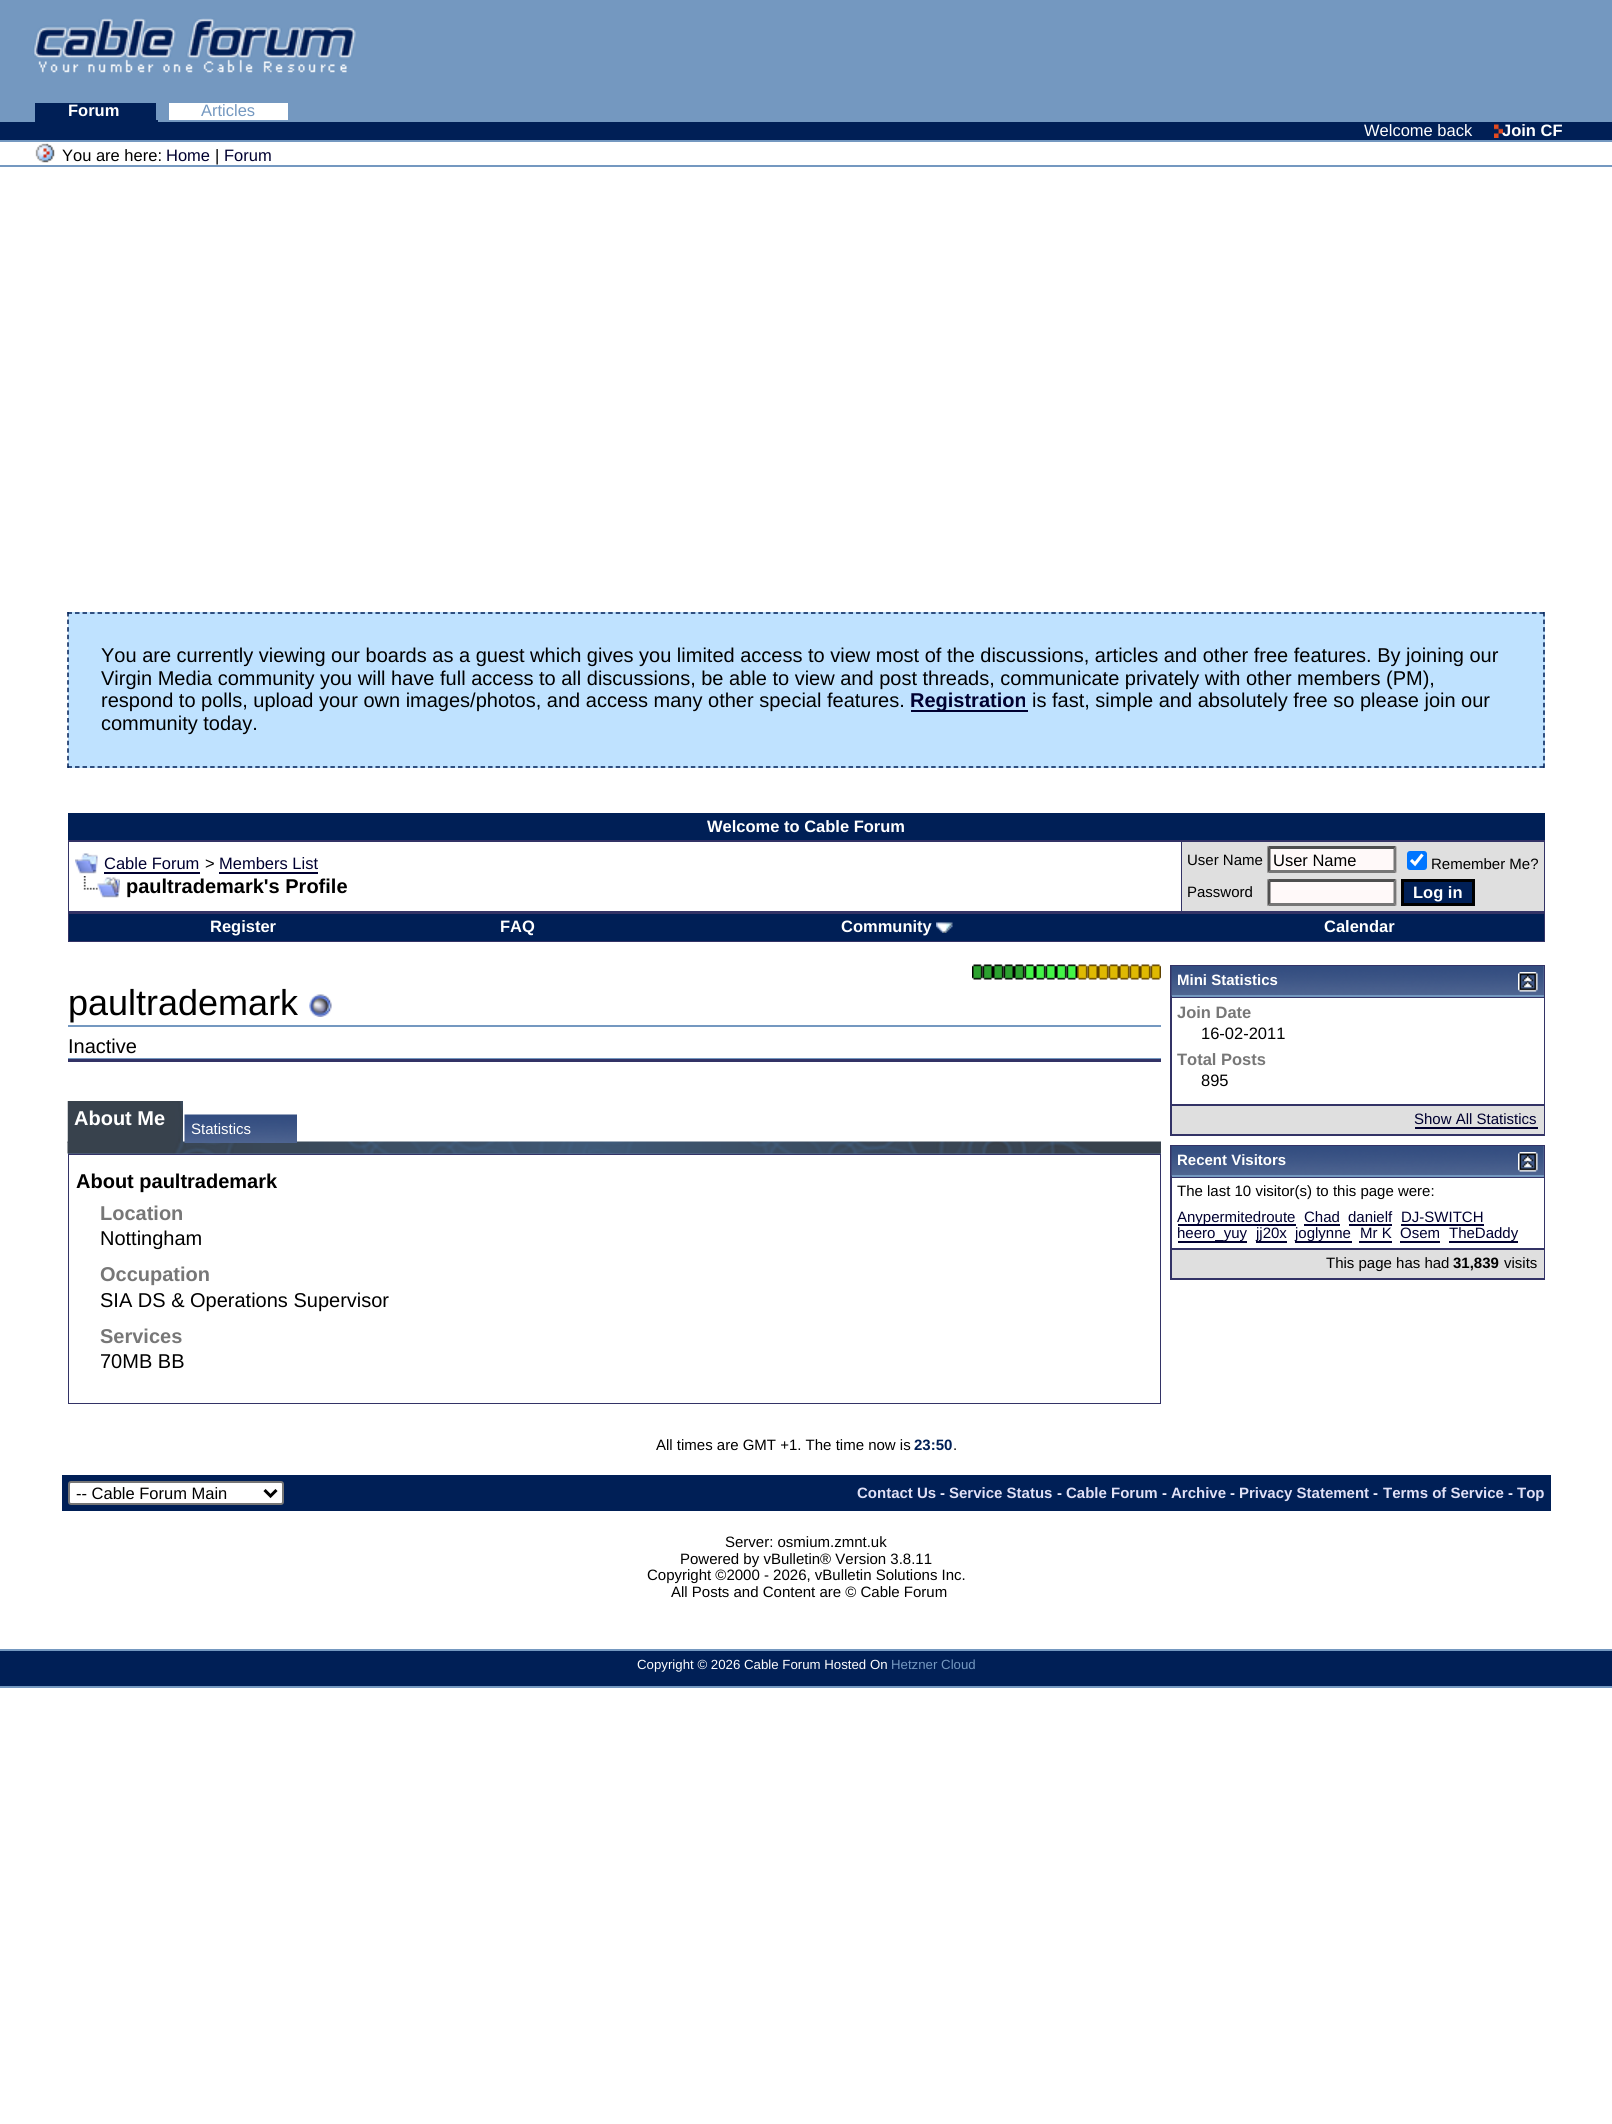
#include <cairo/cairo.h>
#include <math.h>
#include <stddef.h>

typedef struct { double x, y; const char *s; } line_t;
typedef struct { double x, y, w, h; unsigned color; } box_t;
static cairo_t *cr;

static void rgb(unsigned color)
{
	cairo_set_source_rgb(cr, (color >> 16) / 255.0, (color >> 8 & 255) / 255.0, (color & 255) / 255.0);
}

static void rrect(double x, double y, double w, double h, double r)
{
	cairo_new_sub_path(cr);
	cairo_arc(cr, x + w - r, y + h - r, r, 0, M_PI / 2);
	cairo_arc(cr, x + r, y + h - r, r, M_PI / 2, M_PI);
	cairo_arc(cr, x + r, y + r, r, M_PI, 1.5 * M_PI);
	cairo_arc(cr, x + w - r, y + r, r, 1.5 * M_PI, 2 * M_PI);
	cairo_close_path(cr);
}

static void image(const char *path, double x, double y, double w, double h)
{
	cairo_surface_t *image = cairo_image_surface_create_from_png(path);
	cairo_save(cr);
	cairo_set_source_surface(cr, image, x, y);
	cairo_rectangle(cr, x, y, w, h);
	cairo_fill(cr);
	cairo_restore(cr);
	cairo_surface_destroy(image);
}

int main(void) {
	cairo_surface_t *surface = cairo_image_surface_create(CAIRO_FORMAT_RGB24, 1612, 2124);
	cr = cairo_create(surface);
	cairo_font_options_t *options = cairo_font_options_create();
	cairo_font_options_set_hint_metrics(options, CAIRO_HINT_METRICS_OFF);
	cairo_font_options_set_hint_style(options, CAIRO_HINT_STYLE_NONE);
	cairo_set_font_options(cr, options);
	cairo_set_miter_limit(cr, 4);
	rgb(0xffffff);
	cairo_paint(cr);
	rgb(0x7498c0);
	cairo_rectangle(cr, 0, 0, 1612, 122);
	cairo_fill(cr);
	image("img/1.png", 33, 18, 323, 55);
	{
		static const box_t items[] = {
			{35, 103, 121, 17, 0x001f56},
			{33, 120, 125, 2, 0x001f56},
			{33, 120, 2, 2, 0x7498c0},
			{169, 103, 119, 17, 0xffffff},
			{0, 122, 1612, 18, 0x001f56},
			{0, 140, 1612, 2, 0x7498c0},
		};
		for (size_t i = 0; i < sizeof items / sizeof *items; i++) {
			rgb(items[i].color);
			cairo_rectangle(cr, items[i].x, items[i].y, items[i].w, items[i].h);
			cairo_fill(cr);
		}
	}
	image("img/2.png", 1494, 124, 9, 14);
	cairo_rectangle(cr, 0, 165, 1612, 2);
	cairo_fill(cr);
	image("img/3.png", 35, 143, 20, 20);
	rgb(0xbfe2ff);
	cairo_rectangle(cr, 68, 612, 1477, 156);
	cairo_fill(cr);
	cairo_new_path(cr);
	cairo_move_to(cr, 67.5, 613);
	cairo_line_to(cr, 1545, 613);
	rgb(0x001f56);
	cairo_set_line_width(cr, 1.5);
	cairo_set_dash(cr, (double[]){4.5, 3.01}, 2, 0);
	cairo_stroke(cr);
	cairo_new_path(cr);
	cairo_move_to(cr, 1544, 612);
	cairo_line_to(cr, 1544, 768);
	cairo_set_dash(cr, (double[]){4.5, 3.07}, 2, 0);
	cairo_stroke(cr);
	cairo_new_path(cr);
	cairo_move_to(cr, 67.5, 767);
	cairo_line_to(cr, 1545, 767);
	cairo_set_dash(cr, (double[]){4.5, 3.01}, 2, 0);
	cairo_stroke(cr);
	cairo_new_path(cr);
	cairo_move_to(cr, 68, 612);
	cairo_line_to(cr, 68, 768);
	cairo_set_dash(cr, (double[]){4.5, 3.07}, 2, 0);
	cairo_stroke(cr);
	{
		static const box_t items[] = {
			{911, 710, 117, 2, 0x000030},
			{68, 813, 1477, 27, 0x001f56},
			{68, 840, 1477, 102, 0x333366},
			{69, 842, 1112, 69, 0xffffff},
		};
		for (size_t i = 0; i < sizeof items / sizeof *items; i++) {
			rgb(items[i].color);
			cairo_rectangle(cr, items[i].x, items[i].y, items[i].w, items[i].h);
			cairo_fill(cr);
		}
	}
	image("img/4.png", 75, 853, 23, 21);
	rgb(0x000030);
	cairo_rectangle(cr, 104, 872, 96, 2);
	cairo_fill(cr);
	cairo_rectangle(cr, 219, 872, 99, 2);
	cairo_fill(cr);
	image("img/5.png", 83, 876, 37, 22);
	rgb(0xdfdfdf);
	cairo_rectangle(cr, 1182, 842, 362, 69);
	cairo_fill(cr);
	rgb(0xfff9f9);
	cairo_rectangle(cr, 1268, 846, 129, 27);
	cairo_fill(cr);
	rgb(0x4f4f4f);
	cairo_new_path(cr);
	cairo_move_to(cr, 1268, 846);
	cairo_line_to(cr, 1396, 846);
	cairo_line_to(cr, 1394, 849);
	cairo_line_to(cr, 1270, 849);
	cairo_close_path(cr);
	cairo_fill(cr);
	rgb(0x767676);
	cairo_new_path(cr);
	cairo_move_to(cr, 1396.5, 846);
	cairo_line_to(cr, 1396.5, 873);
	cairo_line_to(cr, 1393.5, 870);
	cairo_line_to(cr, 1393.5, 849);
	cairo_close_path(cr);
	cairo_fill(cr);
	cairo_new_path(cr);
	cairo_move_to(cr, 1396, 873);
	cairo_line_to(cr, 1268, 873);
	cairo_line_to(cr, 1270, 870);
	cairo_line_to(cr, 1394, 870);
	cairo_close_path(cr);
	cairo_fill(cr);
	rgb(0x4f4f4f);
	cairo_new_path(cr);
	cairo_move_to(cr, 1267.5, 873);
	cairo_line_to(cr, 1267.5, 846);
	cairo_line_to(cr, 1270.5, 849);
	cairo_line_to(cr, 1270.5, 870);
	cairo_close_path(cr);
	cairo_fill(cr);
	rgb(0x0075ff);
	rrect(1407, 851, 20, 19, 3);
	cairo_fill(cr);
	cairo_new_path(cr);
	cairo_move_to(cr, 1411, 860);
	cairo_line_to(cr, 1415, 864);
	cairo_line_to(cr, 1422.5, 854.5);
	rgb(0xffffff);
	cairo_set_line_width(cr, 3.1);
	cairo_set_dash(cr, NULL, 0, 0);
	cairo_stroke(cr);
	rgb(0xfff9f9);
	cairo_rectangle(cr, 1268, 879, 129, 27);
	cairo_fill(cr);
	rgb(0x4f4f4f);
	cairo_new_path(cr);
	cairo_move_to(cr, 1268, 879);
	cairo_line_to(cr, 1396, 879);
	cairo_line_to(cr, 1394, 882);
	cairo_line_to(cr, 1270, 882);
	cairo_close_path(cr);
	cairo_fill(cr);
	rgb(0x767676);
	cairo_new_path(cr);
	cairo_move_to(cr, 1396.5, 879);
	cairo_line_to(cr, 1396.5, 906);
	cairo_line_to(cr, 1393.5, 903);
	cairo_line_to(cr, 1393.5, 882);
	cairo_close_path(cr);
	cairo_fill(cr);
	cairo_new_path(cr);
	cairo_move_to(cr, 1396, 906);
	cairo_line_to(cr, 1268, 906);
	cairo_line_to(cr, 1270, 903);
	cairo_line_to(cr, 1394, 903);
	cairo_close_path(cr);
	cairo_fill(cr);
	rgb(0x4f4f4f);
	cairo_new_path(cr);
	cairo_move_to(cr, 1267.5, 906);
	cairo_line_to(cr, 1267.5, 879);
	cairo_line_to(cr, 1270.5, 882);
	cairo_line_to(cr, 1270.5, 903);
	cairo_close_path(cr);
	cairo_fill(cr);
	rgb(0x001f56);
	cairo_rectangle(cr, 1402.5, 880.5, 71, 24);
	cairo_fill_preserve(cr);
	rgb(0x000000);
	cairo_set_line_width(cr, 3);
	cairo_stroke(cr);
	rgb(0x001f56);
	cairo_rectangle(cr, 69, 914, 1475, 27);
	cairo_fill(cr);
	image("img/6.png", 936, 922, 17, 11);
	image("img/7.png", 972, 964, 11, 16);
	image("img/8.png", 982, 964, 11, 16);
	image("img/7.png", 993, 964, 11, 16);
	image("img/8.png", 1003, 964, 11, 16);
	image("img/7.png", 1014, 964, 11, 16);
	image("img/9.png", 1024, 964, 11, 16);
	image("img/10.png", 1035, 964, 11, 16);
	image("img/11.png", 1045, 964, 11, 16);
	image("img/10.png", 1056, 964, 11, 16);
	image("img/9.png", 1066, 964, 11, 16);
	image("img/12.png", 1077, 964, 11, 16);
	image("img/13.png", 1087, 964, 11, 16);
	image("img/12.png", 1098, 964, 11, 16);
	image("img/13.png", 1108, 964, 11, 16);
	image("img/12.png", 1119, 964, 11, 16);
	image("img/14.png", 1129, 964, 11, 16);
	image("img/12.png", 1140, 964, 11, 16);
	image("img/14.png", 1150, 964, 11, 16);
	rgb(0x7498c0);
	cairo_rectangle(cr, 68, 1025, 1093, 2);
	cairo_fill(cr);
	image("img/15.png", 309, 994, 23, 23);
	{
		static const box_t items[] = {
			{68, 1058, 1093, 1, 0x7498c0},
			{68, 1059, 1093, 3, 0x333366},
			{68, 1153, 1093, 1, 0x5c7099},
		};
		for (size_t i = 0; i < sizeof items / sizeof *items; i++) {
			rgb(items[i].color);
			cairo_rectangle(cr, items[i].x, items[i].y, items[i].w, items[i].h);
			cairo_fill(cr);
		}
	}
	image("img/18.png", 67, 1141, 1094, 13);
	image("img/16.png", 67, 1101, 116, 42);
	image("img/17.png", 184, 1114, 113, 29);
	{
		static const box_t items[] = {
			{68, 1154, 1093, 250, 0x333366},
			{69, 1155, 1091, 248, 0xffffff},
			{1170, 965, 375, 171, 0x333366},
			{1543, 966, 1, 29, 0x5c7099},
		};
		for (size_t i = 0; i < sizeof items / sizeof *items; i++) {
			rgb(items[i].color);
			cairo_rectangle(cr, items[i].x, items[i].y, items[i].w, items[i].h);
			cairo_fill(cr);
		}
	}
	image("img/19.png", 1171, 966, 373, 30);
	rgb(0x7498c0);
	cairo_rectangle(cr, 1172, 995, 372, 2);
	cairo_fill(cr);
	image("img/20.png", 1518, 972, 20, 20);
	{
		static const box_t items[] = {
			{1172, 998, 372, 106, 0xffffff},
			{1172, 1106, 372, 28, 0xdfdfdf},
			{1415, 1127, 123, 2, 0x000030},
			{1170, 1145, 375, 135, 0x333366},
			{1543, 1146, 1, 29, 0x5c7099},
		};
		for (size_t i = 0; i < sizeof items / sizeof *items; i++) {
			rgb(items[i].color);
			cairo_rectangle(cr, items[i].x, items[i].y, items[i].w, items[i].h);
			cairo_fill(cr);
		}
	}
	image("img/21.png", 1171, 1146, 373, 30);
	rgb(0x7498c0);
	cairo_rectangle(cr, 1172, 1175, 372, 2);
	cairo_fill(cr);
	image("img/22.png", 1518, 1152, 20, 20);
	{
		static const box_t items[] = {
			{1172, 1178, 372, 70, 0xffffff},
			{1178, 1224, 118, 2, 0x000030},
			{1304, 1224, 36, 2, 0x000030},
			{1349, 1224, 43, 2, 0x000030},
			{1401, 1224, 83, 2, 0x000030},
			{1178, 1241, 69, 2, 0x000030},
			{1256, 1241, 31, 2, 0x000030},
			{1295, 1241, 57, 2, 0x000030},
			{1359, 1241, 33, 2, 0x000030},
			{1400, 1241, 40, 2, 0x000030},
			{1449, 1241, 69, 2, 0x000030},
			{1172, 1250, 372, 28, 0xdfdfdf},
			{62, 1475, 1489, 36, 0x001f56},
		};
		for (size_t i = 0; i < sizeof items / sizeof *items; i++) {
			rgb(items[i].color);
			cairo_rectangle(cr, items[i].x, items[i].y, items[i].w, items[i].h);
			cairo_fill(cr);
		}
	}
	rgb(0xffffff);
	rrect(69, 1482, 214, 22, 2);
	cairo_fill_preserve(cr);
	rgb(0x767676);
	cairo_set_line_width(cr, 2);
	cairo_stroke(cr);
	cairo_new_path(cr);
	cairo_move_to(cr, 264.5, 1490);
	cairo_line_to(cr, 270.5, 1496);
	cairo_line_to(cr, 276.5, 1490);
	rgb(0x000000);
	cairo_set_line_width(cr, 3);
	cairo_stroke(cr);
	{
		static const box_t items[] = {
			{0, 1651, 1612, 35, 0x001f56},
			{0, 1649, 1612, 2, 0x7498c0},
			{0, 1686, 1612, 2, 0x7498c0},
		};
		for (size_t i = 0; i < sizeof items / sizeof *items; i++) {
			rgb(items[i].color);
			cairo_rectangle(cr, items[i].x, items[i].y, items[i].w, items[i].h);
			cairo_fill(cr);
		}
	}
	cairo_select_font_face(cr, "Liberation Sans", CAIRO_FONT_SLANT_NORMAL, CAIRO_FONT_WEIGHT_BOLD);
	cairo_set_font_size(cr, 16.5);
	rgb(0xffffff);
	cairo_move_to(cr, 68, 116);
	cairo_show_text(cr, "Forum");
	cairo_select_font_face(cr, "Liberation Sans", CAIRO_FONT_SLANT_NORMAL, CAIRO_FONT_WEIGHT_NORMAL);
	rgb(0x7498c0);
	cairo_move_to(cr, 201, 116);
	cairo_show_text(cr, "Articles");
	rgb(0xffffff);
	cairo_move_to(cr, 1364, 136);
	cairo_show_text(cr, "Welcome back");
	cairo_select_font_face(cr, "Liberation Sans", CAIRO_FONT_SLANT_NORMAL, CAIRO_FONT_WEIGHT_BOLD);
	cairo_move_to(cr, 1502, 136);
	cairo_show_text(cr, "Join CF");
	cairo_select_font_face(cr, "Liberation Sans", CAIRO_FONT_SLANT_NORMAL, CAIRO_FONT_WEIGHT_NORMAL);
	rgb(0x000000);
	cairo_move_to(cr, 62, 161);
	cairo_show_text(cr, "You are here:");
	rgb(0x000030);
	cairo_move_to(cr, 166, 161);
	cairo_show_text(cr, "Home");
	rgb(0x000000);
	cairo_move_to(cr, 215, 161);
	cairo_show_text(cr, "|");
	rgb(0x000030);
	cairo_move_to(cr, 224, 161);
	cairo_show_text(cr, "Forum");
	cairo_set_font_size(cr, 20);
	rgb(0x000000);
	{
		static const line_t items[] = {
			{101, 662, "You are currently viewing our boards as a guest which gives you limited access to view most of the discussions, articles and other free features. By joining our"},
			{101, 685, "Virgin Media community you will have full access to all discussions, be able to view and post threads, communicate privately with other members (PM),"},
			{101, 707, "respond to polls, upload your own images/photos, and access many other special features."},
		};
		for (size_t i = 0; i < sizeof items / sizeof *items; i++) {
			cairo_move_to(cr, items[i].x, items[i].y);
			cairo_show_text(cr, items[i].s);
		}
	}
	cairo_select_font_face(cr, "Liberation Sans", CAIRO_FONT_SLANT_NORMAL, CAIRO_FONT_WEIGHT_BOLD);
	rgb(0x000030);
	cairo_move_to(cr, 910, 707);
	cairo_show_text(cr, "Registration");
	cairo_select_font_face(cr, "Liberation Sans", CAIRO_FONT_SLANT_NORMAL, CAIRO_FONT_WEIGHT_NORMAL);
	rgb(0x000000);
	cairo_move_to(cr, 1032, 707);
	cairo_show_text(cr, "is fast, simple and absolutely free so please join our");
	cairo_move_to(cr, 101, 730);
	cairo_show_text(cr, "community today.");
	cairo_select_font_face(cr, "Liberation Sans", CAIRO_FONT_SLANT_NORMAL, CAIRO_FONT_WEIGHT_BOLD);
	cairo_set_font_size(cr, 16.5);
	rgb(0xffffff);
	cairo_move_to(cr, 707, 832);
	cairo_show_text(cr, "Welcome to Cable Forum");
	cairo_select_font_face(cr, "Liberation Sans", CAIRO_FONT_SLANT_NORMAL, CAIRO_FONT_WEIGHT_NORMAL);
	rgb(0x000030);
	cairo_move_to(cr, 104, 869);
	cairo_show_text(cr, "Cable Forum");
	rgb(0x000000);
	cairo_move_to(cr, 205, 869);
	cairo_show_text(cr, ">");
	rgb(0x000030);
	cairo_move_to(cr, 219, 869);
	cairo_show_text(cr, "Members List");
	cairo_select_font_face(cr, "Liberation Sans", CAIRO_FONT_SLANT_NORMAL, CAIRO_FONT_WEIGHT_BOLD);
	cairo_set_font_size(cr, 20);
	rgb(0x000000);
	cairo_move_to(cr, 126, 893);
	cairo_show_text(cr, "paultrademark's Profile");
	cairo_select_font_face(cr, "Liberation Sans", CAIRO_FONT_SLANT_NORMAL, CAIRO_FONT_WEIGHT_NORMAL);
	cairo_set_font_size(cr, 15);
	cairo_move_to(cr, 1187, 865);
	cairo_show_text(cr, "User Name");
	cairo_set_font_size(cr, 16.5);
	cairo_move_to(cr, 1273, 866);
	cairo_show_text(cr, "User Name");
	cairo_set_font_size(cr, 15);
	cairo_move_to(cr, 1431, 869);
	cairo_show_text(cr, "Remember Me?");
	cairo_move_to(cr, 1187, 897);
	cairo_show_text(cr, "Password");
	cairo_select_font_face(cr, "Liberation Sans", CAIRO_FONT_SLANT_NORMAL, CAIRO_FONT_WEIGHT_BOLD);
	cairo_set_font_size(cr, 16.5);
	rgb(0xffffff);
	{
		static const line_t items[] = {
			{1413, 898, "Log in"},
			{210, 932, "Register"},
			{500, 932, "FAQ"},
			{841, 932, "Community"},
			{1324, 932, "Calendar"},
		};
		for (size_t i = 0; i < sizeof items / sizeof *items; i++) {
			cairo_move_to(cr, items[i].x, items[i].y);
			cairo_show_text(cr, items[i].s);
		}
	}
	cairo_select_font_face(cr, "Liberation Sans", CAIRO_FONT_SLANT_NORMAL, CAIRO_FONT_WEIGHT_NORMAL);
	cairo_set_font_size(cr, 36);
	rgb(0x000000);
	cairo_move_to(cr, 68, 1015);
	cairo_show_text(cr, "paultrademark");
	cairo_set_font_size(cr, 20);
	cairo_move_to(cr, 68, 1053);
	cairo_show_text(cr, "Inactive");
	cairo_select_font_face(cr, "Liberation Sans", CAIRO_FONT_SLANT_NORMAL, CAIRO_FONT_WEIGHT_BOLD);
	rgb(0xffffff);
	cairo_move_to(cr, 74, 1125);
	cairo_show_text(cr, "About Me");
	cairo_select_font_face(cr, "Liberation Sans", CAIRO_FONT_SLANT_NORMAL, CAIRO_FONT_WEIGHT_NORMAL);
	cairo_set_font_size(cr, 15);
	cairo_move_to(cr, 191, 1134);
	cairo_show_text(cr, "Statistics");
	cairo_select_font_face(cr, "Liberation Sans", CAIRO_FONT_SLANT_NORMAL, CAIRO_FONT_WEIGHT_BOLD);
	cairo_set_font_size(cr, 20);
	rgb(0x000000);
	cairo_move_to(cr, 76, 1188);
	cairo_show_text(cr, "About paultrademark");
	rgb(0x777777);
	cairo_move_to(cr, 100, 1220);
	cairo_show_text(cr, "Location");
	cairo_select_font_face(cr, "Liberation Sans", CAIRO_FONT_SLANT_NORMAL, CAIRO_FONT_WEIGHT_NORMAL);
	rgb(0x000000);
	cairo_move_to(cr, 100, 1245);
	cairo_show_text(cr, "Nottingham");
	cairo_select_font_face(cr, "Liberation Sans", CAIRO_FONT_SLANT_NORMAL, CAIRO_FONT_WEIGHT_BOLD);
	rgb(0x777777);
	cairo_move_to(cr, 100, 1281);
	cairo_show_text(cr, "Occupation");
	cairo_select_font_face(cr, "Liberation Sans", CAIRO_FONT_SLANT_NORMAL, CAIRO_FONT_WEIGHT_NORMAL);
	rgb(0x000000);
	cairo_move_to(cr, 100, 1307);
	cairo_show_text(cr, "SIA DS & Operations Supervisor");
	cairo_select_font_face(cr, "Liberation Sans", CAIRO_FONT_SLANT_NORMAL, CAIRO_FONT_WEIGHT_BOLD);
	rgb(0x777777);
	cairo_move_to(cr, 100, 1343);
	cairo_show_text(cr, "Services");
	cairo_select_font_face(cr, "Liberation Sans", CAIRO_FONT_SLANT_NORMAL, CAIRO_FONT_WEIGHT_NORMAL);
	rgb(0x000000);
	cairo_move_to(cr, 100, 1368);
	cairo_show_text(cr, "70MB BB");
	cairo_select_font_face(cr, "Liberation Sans", CAIRO_FONT_SLANT_NORMAL, CAIRO_FONT_WEIGHT_BOLD);
	cairo_set_font_size(cr, 15);
	rgb(0xffffff);
	cairo_move_to(cr, 1177, 985);
	cairo_show_text(cr, "Mini Statistics");
	cairo_set_font_size(cr, 16.5);
	rgb(0x777777);
	cairo_move_to(cr, 1177, 1018);
	cairo_show_text(cr, "Join Date");
	cairo_select_font_face(cr, "Liberation Sans", CAIRO_FONT_SLANT_NORMAL, CAIRO_FONT_WEIGHT_NORMAL);
	rgb(0x000000);
	cairo_move_to(cr, 1201, 1039);
	cairo_show_text(cr, "16-02-2011");
	cairo_select_font_face(cr, "Liberation Sans", CAIRO_FONT_SLANT_NORMAL, CAIRO_FONT_WEIGHT_BOLD);
	rgb(0x777777);
	cairo_move_to(cr, 1177, 1065);
	cairo_show_text(cr, "Total Posts");
	cairo_select_font_face(cr, "Liberation Sans", CAIRO_FONT_SLANT_NORMAL, CAIRO_FONT_WEIGHT_NORMAL);
	rgb(0x000000);
	cairo_move_to(cr, 1201, 1086);
	cairo_show_text(cr, "895");
	cairo_set_font_size(cr, 15);
	rgb(0x000030);
	cairo_move_to(cr, 1414, 1124);
	cairo_show_text(cr, "Show All Statistics");
	cairo_select_font_face(cr, "Liberation Sans", CAIRO_FONT_SLANT_NORMAL, CAIRO_FONT_WEIGHT_BOLD);
	rgb(0xffffff);
	cairo_move_to(cr, 1177, 1165);
	cairo_show_text(cr, "Recent Visitors");
	cairo_select_font_face(cr, "Liberation Sans", CAIRO_FONT_SLANT_NORMAL, CAIRO_FONT_WEIGHT_NORMAL);
	rgb(0x000000);
	cairo_move_to(cr, 1177, 1196);
	cairo_show_text(cr, "The last 10 visitor(s) to this page were:");
	rgb(0x000030);
	{
		static const line_t items[] = {
			{1177, 1222, "Anypermitedroute"},
			{1304, 1222, "Chad"},
			{1348, 1222, "danielf"},
			{1401, 1222, "DJ-SWITCH"},
			{1177, 1238, "heero_yuy"},
			{1256, 1238, "jj20x"},
			{1295, 1238, "joglynne"},
			{1360, 1238, "Mr K"},
			{1400, 1238, "Osem"},
			{1449, 1238, "TheDaddy"},
		};
		for (size_t i = 0; i < sizeof items / sizeof *items; i++) {
			cairo_move_to(cr, items[i].x, items[i].y);
			cairo_show_text(cr, items[i].s);
		}
	}
	rgb(0x000000);
	cairo_move_to(cr, 1326, 1268);
	cairo_show_text(cr, "This page has had");
	cairo_select_font_face(cr, "Liberation Sans", CAIRO_FONT_SLANT_NORMAL, CAIRO_FONT_WEIGHT_BOLD);
	cairo_move_to(cr, 1453, 1268);
	cairo_show_text(cr, "31,839");
	cairo_select_font_face(cr, "Liberation Sans", CAIRO_FONT_SLANT_NORMAL, CAIRO_FONT_WEIGHT_NORMAL);
	cairo_move_to(cr, 1504, 1268);
	cairo_show_text(cr, "visits");
	cairo_move_to(cr, 656, 1450);
	cairo_show_text(cr, "All times are GMT +1. The time now is");
	cairo_select_font_face(cr, "Liberation Sans", CAIRO_FONT_SLANT_NORMAL, CAIRO_FONT_WEIGHT_BOLD);
	rgb(0x001f56);
	cairo_move_to(cr, 914, 1450);
	cairo_show_text(cr, "23:50");
	cairo_select_font_face(cr, "Liberation Sans", CAIRO_FONT_SLANT_NORMAL, CAIRO_FONT_WEIGHT_NORMAL);
	rgb(0x000000);
	cairo_move_to(cr, 953, 1450);
	cairo_show_text(cr, ".");
	cairo_set_font_size(cr, 16.5);
	cairo_move_to(cr, 76, 1499);
	cairo_show_text(cr, "-- Cable Forum Main");
	cairo_select_font_face(cr, "Liberation Sans", CAIRO_FONT_SLANT_NORMAL, CAIRO_FONT_WEIGHT_BOLD);
	cairo_set_font_size(cr, 15);
	rgb(0xe0e0f6);
	cairo_move_to(cr, 857, 1498);
	cairo_show_text(cr, "Contact Us");
	rgb(0xeeeeff);
	cairo_move_to(cr, 940, 1498);
	cairo_show_text(cr, "-");
	rgb(0xe0e0f6);
	cairo_move_to(cr, 949, 1498);
	cairo_show_text(cr, "Service Status");
	rgb(0xeeeeff);
	cairo_move_to(cr, 1057, 1498);
	cairo_show_text(cr, "-");
	rgb(0xe0e0f6);
	cairo_move_to(cr, 1066, 1498);
	cairo_show_text(cr, "Cable Forum");
	rgb(0xeeeeff);
	cairo_move_to(cr, 1162, 1498);
	cairo_show_text(cr, "-");
	rgb(0xe0e0f6);
	cairo_move_to(cr, 1171, 1498);
	cairo_show_text(cr, "Archive");
	rgb(0xeeeeff);
	cairo_move_to(cr, 1230, 1498);
	cairo_show_text(cr, "-");
	rgb(0xe0e0f6);
	cairo_move_to(cr, 1239, 1498);
	cairo_show_text(cr, "Privacy Statement");
	rgb(0xeeeeff);
	cairo_move_to(cr, 1373, 1498);
	cairo_show_text(cr, "-");
	rgb(0xe0e0f6);
	cairo_move_to(cr, 1383, 1498);
	cairo_show_text(cr, "Terms of Service");
	rgb(0xeeeeff);
	cairo_move_to(cr, 1508, 1498);
	cairo_show_text(cr, "-");
	rgb(0xe0e0f6);
	cairo_move_to(cr, 1517, 1498);
	cairo_show_text(cr, "Top");
	cairo_select_font_face(cr, "Liberation Sans", CAIRO_FONT_SLANT_NORMAL, CAIRO_FONT_WEIGHT_NORMAL);
	rgb(0x000000);
	{
		static const line_t items[] = {
			{725, 1547, "Server: osmium.zmnt.uk"},
			{680, 1564, "Powered by vBulletin® Version 3.8.11"},
			{647, 1580, "Copyright ©2000 - 2026, vBulletin Solutions Inc."},
			{671, 1597, "All Posts and Content are © Cable Forum"},
		};
		for (size_t i = 0; i < sizeof items / sizeof *items; i++) {
			cairo_move_to(cr, items[i].x, items[i].y);
			cairo_show_text(cr, items[i].s);
		}
	}
	cairo_set_font_size(cr, 13.25);
	rgb(0xffffff);
	cairo_move_to(cr, 637, 1669);
	cairo_show_text(cr, "Copyright © 2026 Cable Forum Hosted On");
	rgb(0x7498c0);
	cairo_move_to(cr, 891, 1669);
	cairo_show_text(cr, "Hetzner Cloud");
	cairo_surface_write_to_png(surface, "page.png");
	cairo_font_options_destroy(options);
	cairo_destroy(cr);
	cairo_surface_destroy(surface);
	return 0;
}
